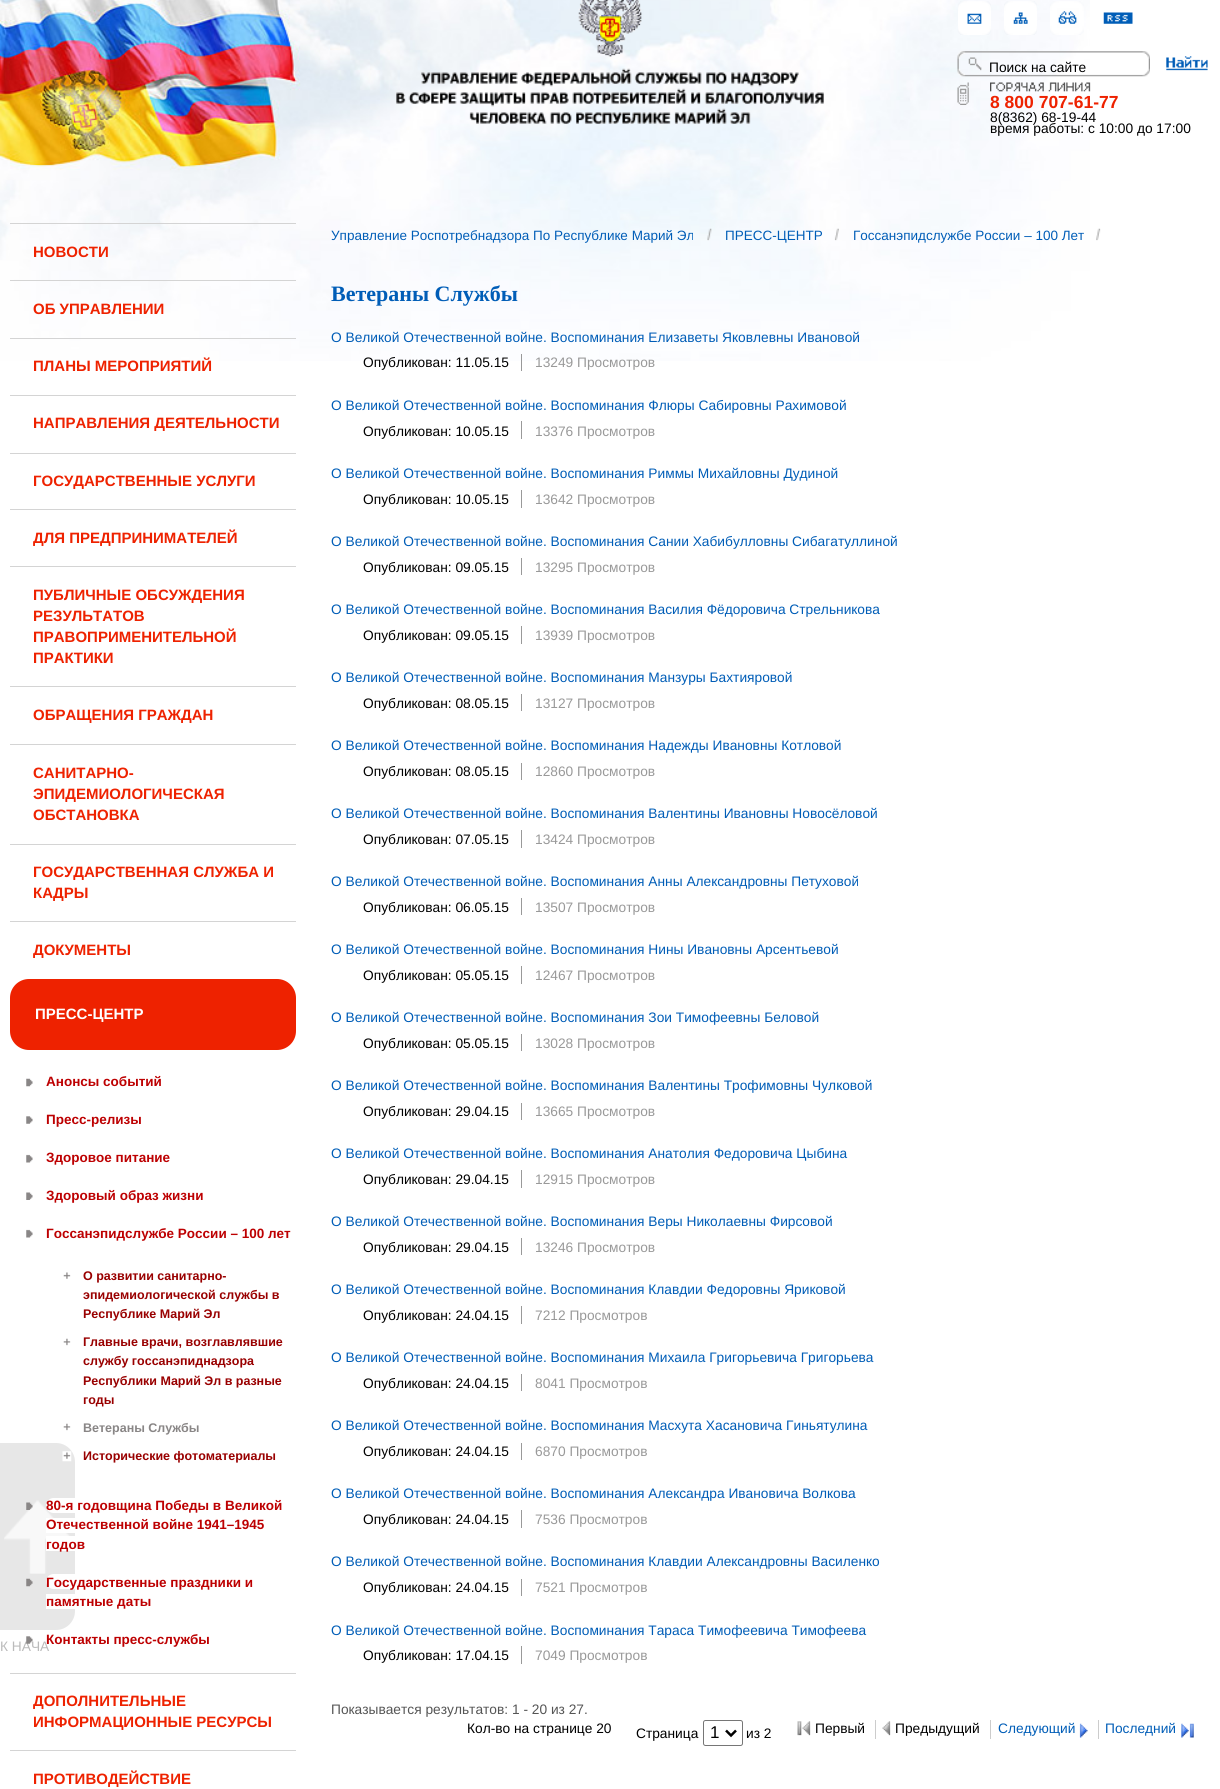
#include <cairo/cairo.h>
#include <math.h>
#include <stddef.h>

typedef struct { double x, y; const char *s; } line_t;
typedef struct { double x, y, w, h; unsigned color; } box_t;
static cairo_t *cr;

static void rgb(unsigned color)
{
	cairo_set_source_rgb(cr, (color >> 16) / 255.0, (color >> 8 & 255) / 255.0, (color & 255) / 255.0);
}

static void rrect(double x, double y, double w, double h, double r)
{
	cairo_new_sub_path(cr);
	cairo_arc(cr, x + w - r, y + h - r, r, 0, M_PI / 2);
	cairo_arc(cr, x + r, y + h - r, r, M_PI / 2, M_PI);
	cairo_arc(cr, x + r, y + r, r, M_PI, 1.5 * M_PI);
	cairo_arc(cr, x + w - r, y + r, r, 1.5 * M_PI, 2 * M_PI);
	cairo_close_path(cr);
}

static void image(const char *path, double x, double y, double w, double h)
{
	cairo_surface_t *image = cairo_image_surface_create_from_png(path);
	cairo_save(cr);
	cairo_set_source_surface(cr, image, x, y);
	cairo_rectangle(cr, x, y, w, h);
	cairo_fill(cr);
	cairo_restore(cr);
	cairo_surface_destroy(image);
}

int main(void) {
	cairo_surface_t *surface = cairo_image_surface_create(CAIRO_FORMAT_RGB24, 1220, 1789);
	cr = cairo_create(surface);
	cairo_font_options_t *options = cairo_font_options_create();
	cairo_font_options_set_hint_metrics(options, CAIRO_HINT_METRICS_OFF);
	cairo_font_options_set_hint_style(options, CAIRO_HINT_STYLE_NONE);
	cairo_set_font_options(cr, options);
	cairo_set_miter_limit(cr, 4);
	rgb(0xffffff);
	cairo_paint(cr);
	image("img/1.png", 0, 0, 1090, 361);
	image("img/2.png", 396, 0, 428, 124);
	image("img/3.png", 958, 1, 33, 34);
	image("img/4.png", 1004, 1, 33, 34);
	image("img/5.png", 1050, 1, 34, 34);
	image("img/6.png", 1103, 12, 30, 12);
	image("img/7.png", 957, 51, 193, 26);
	image("img/8.png", 1166, 56, 42, 15);
	image("img/9.png", 957, 82, 12, 23);
	image("img/10.png", 990, 82, 101, 10);
	rgb(0xe7e7e7);
	cairo_new_path(cr);
	cairo_move_to(cr, 0, 1443);
	cairo_line_to(cr, 56, 1443);
	cairo_curve_to(cr, 66.5, 1443, 75, 1451.5, 75, 1462);
	cairo_line_to(cr, 75, 1611);
	cairo_curve_to(cr, 75, 1621.5, 66.5, 1630, 56, 1630);
	cairo_line_to(cr, 0, 1630);
	cairo_close_path(cr);
	cairo_fill(cr);
	image("img/11.png", 4, 1500, 67, 74);
	{
		static const box_t items[] = {
			{10, 223, 286, 1, 0xd4d4d4},
			{10, 280, 286, 1, 0xd4d4d4},
			{10, 338, 286, 1, 0xd4d4d4},
			{10, 395, 286, 1, 0xd4d4d4},
			{10, 453, 286, 1, 0xd4d4d4},
			{10, 509, 286, 1, 0xd4d4d4},
			{10, 566, 286, 1, 0xd4d4d4},
			{10, 686, 286, 1, 0xd4d4d4},
			{10, 744, 286, 1, 0xd4d4d4},
			{10, 844, 286, 1, 0xd4d4d4},
			{10, 921, 286, 1, 0xd4d4d4},
		};
		for (size_t i = 0; i < sizeof items / sizeof *items; i++) {
			rgb(items[i].color);
			cairo_rectangle(cr, items[i].x, items[i].y, items[i].w, items[i].h);
			cairo_fill(cr);
		}
	}
	rgb(0xee2200);
	rrect(10, 979, 286, 71, 19);
	cairo_fill(cr);
	image("img/12.png", 26, 1078, 7, 9);
	image("img/13.png", 26, 1116, 7, 8);
	image("img/14.png", 26, 1154, 7, 9);
	image("img/15.png", 26, 1192, 7, 8);
	image("img/14.png", 26, 1229, 7, 9);
	image("img/16.png", 63, 1272, 8, 7);
	image("img/17.png", 63, 1338, 8, 8);
	image("img/17.png", 63, 1423, 8, 8);
	image("img/18.png", 62, 1451, 10, 11);
	image("img/19.png", 26, 1502, 7, 8);
	rgb(0xffffff);
	cairo_new_path(cr);
	cairo_move_to(cr, 53.5, 1498);
	cairo_line_to(cr, 283, 1498);
	cairo_line_to(cr, 283, 1513);
	cairo_line_to(cr, 53.5, 1513);
	cairo_curve_to(cr, 49.5, 1513, 46, 1509.5, 46, 1505.5);
	cairo_curve_to(cr, 46, 1501.5, 49.5, 1498, 53.5, 1498);
	cairo_close_path(cr);
	cairo_fill(cr);
	cairo_rectangle(cr, 46, 1518, 29, 15);
	cairo_fill(cr);
	cairo_new_path(cr);
	cairo_move_to(cr, 46, 1536);
	cairo_line_to(cr, 77.5, 1536);
	cairo_curve_to(cr, 81.5, 1536, 85, 1539.5, 85, 1543.5);
	cairo_curve_to(cr, 85, 1547.5, 81.5, 1551, 77.5, 1551);
	cairo_line_to(cr, 46, 1551);
	cairo_close_path(cr);
	cairo_fill(cr);
	image("img/20.png", 26, 1578, 7, 9);
	cairo_new_path(cr);
	cairo_move_to(cr, 53.5, 1574);
	cairo_line_to(cr, 254, 1574);
	cairo_line_to(cr, 254, 1589);
	cairo_line_to(cr, 53.5, 1589);
	cairo_curve_to(cr, 49.5, 1589, 46, 1585.5, 46, 1581.5);
	cairo_curve_to(cr, 46, 1577.5, 49.5, 1574, 53.5, 1574);
	cairo_close_path(cr);
	cairo_fill(cr);
	cairo_new_path(cr);
	cairo_move_to(cr, 46, 1594);
	cairo_line_to(cr, 143.5, 1594);
	cairo_curve_to(cr, 147.5, 1594, 151, 1597.5, 151, 1601.5);
	cairo_curve_to(cr, 151, 1605.5, 147.5, 1609, 143.5, 1609);
	cairo_line_to(cr, 46, 1609);
	cairo_close_path(cr);
	cairo_fill(cr);
	rgb(0xd4d4d4);
	cairo_rectangle(cr, 10, 1673, 286, 1);
	cairo_fill(cr);
	cairo_rectangle(cr, 10, 1750, 286, 1);
	cairo_fill(cr);
	image("img/22.png", 707, 228, 5, 13);
	image("img/23.png", 834, 228, 5, 13);
	image("img/24.png", 1096, 228, 5, 13);
	{
		static const box_t items[] = {
			{521, 354, 1, 17, 0x999999},
			{521, 421, 1, 18, 0x999999},
			{521, 490, 1, 18, 0x999999},
			{521, 558, 1, 17, 0x999999},
			{521, 626, 1, 18, 0x999999},
			{521, 694, 1, 17, 0x999999},
			{521, 763, 1, 17, 0x999999},
			{521, 830, 1, 18, 0x999999},
			{521, 898, 1, 17, 0x999999},
			{521, 966, 1, 18, 0x999999},
			{521, 1034, 1, 17, 0x999999},
			{521, 1103, 1, 17, 0x999999},
			{521, 1170, 1, 18, 0x999999},
			{521, 1238, 1, 17, 0x999999},
			{521, 1306, 1, 18, 0x999999},
			{521, 1374, 1, 17, 0x999999},
			{521, 1443, 1, 17, 0x999999},
			{521, 1510, 1, 18, 0x999999},
			{521, 1579, 1, 17, 0x999999},
			{521, 1646, 1, 18, 0x999999},
		};
		for (size_t i = 0; i < sizeof items / sizeof *items; i++) {
			rgb(items[i].color);
			cairo_rectangle(cr, items[i].x, items[i].y, items[i].w, items[i].h);
			cairo_fill(cr);
		}
	}
	rrect(703.5, 1720.5, 39, 25, 2);
	rgb(0x767676);
	cairo_set_line_width(cr, 1);
	cairo_stroke(cr);
	cairo_new_path(cr);
	cairo_move_to(cr, 726, 1730.5);
	cairo_line_to(cr, 731, 1735.5);
	cairo_line_to(cr, 736, 1730.5);
	rgb(0x000000);
	cairo_set_line_width(cr, 2.5);
	cairo_stroke(cr);
	image("img/25.png", 797, 1721, 14, 15);
	image("img/26.png", 882, 1721, 9, 15);
	rgb(0xcccccc);
	cairo_rectangle(cr, 875, 1720, 1, 19);
	cairo_fill(cr);
	image("img/27.png", 1079, 1723, 9, 15);
	cairo_rectangle(cr, 990, 1720, 1, 19);
	cairo_fill(cr);
	image("img/28.png", 1181, 1723, 13, 15);
	cairo_rectangle(cr, 1098, 1720, 1, 19);
	cairo_fill(cr);
	cairo_select_font_face(cr, "Liberation Sans", CAIRO_FONT_SLANT_NORMAL, CAIRO_FONT_WEIGHT_NORMAL);
	cairo_set_font_size(cr, 13.75);
	rgb(0x000000);
	cairo_move_to(cr, 989, 72);
	cairo_show_text(cr, "Поиск на сайте");
	cairo_select_font_face(cr, "Liberation Sans", CAIRO_FONT_SLANT_NORMAL, CAIRO_FONT_WEIGHT_BOLD);
	cairo_set_font_size(cr, 17.5);
	rgb(0xee2200);
	cairo_move_to(cr, 990, 108);
	cairo_show_text(cr, "8 800 707-61-77");
	cairo_select_font_face(cr, "Liberation Sans", CAIRO_FONT_SLANT_NORMAL, CAIRO_FONT_WEIGHT_NORMAL);
	cairo_set_font_size(cr, 13.75);
	rgb(0x000000);
	cairo_move_to(cr, 990, 122);
	cairo_show_text(cr, "8(8362) 68-19-44");
	cairo_move_to(cr, 990, 133);
	cairo_show_text(cr, "время работы: с 10:00 до 17:00");
	rgb(0xbbbbbb);
	cairo_move_to(cr, 0, 1651);
	cairo_show_text(cr, "К НАЧА");
	cairo_select_font_face(cr, "Liberation Sans", CAIRO_FONT_SLANT_NORMAL, CAIRO_FONT_WEIGHT_BOLD);
	cairo_set_font_size(cr, 15);
	rgb(0xee2200);
	{
		static const line_t items[] = {
			{33, 257, "НОВОСТИ"},
			{33, 314, "ОБ УПРАВЛЕНИИ"},
			{33, 371, "ПЛАНЫ МЕРОПРИЯТИЙ"},
			{33, 428, "НАПРАВЛЕНИЯ ДЕЯТЕЛЬНОСТИ"},
			{33, 486, "ГОСУДАРСТВЕННЫЕ УСЛУГИ"},
			{33, 543, "ДЛЯ ПРЕДПРИНИМАТЕЛЕЙ"},
			{33, 600, "ПУБЛИЧНЫЕ ОБСУЖДЕНИЯ"},
			{33, 621, "РЕЗУЛЬТАТОВ"},
			{33, 642, "ПРАВОПРИМЕНИТЕЛЬНОЙ"},
			{33, 663, "ПРАКТИКИ"},
			{33, 720, "ОБРАЩЕНИЯ ГРАЖДАН"},
			{33, 778, "САНИТАРНО-"},
			{33, 799, "ЭПИДЕМИОЛОГИЧЕСКАЯ"},
			{33, 820, "ОБСТАНОВКА"},
			{33, 877, "ГОСУДАРСТВЕННАЯ СЛУЖБА И"},
			{33, 898, "КАДРЫ"},
			{33, 955, "ДОКУМЕНТЫ"},
		};
		for (size_t i = 0; i < sizeof items / sizeof *items; i++) {
			cairo_move_to(cr, items[i].x, items[i].y);
			cairo_show_text(cr, items[i].s);
		}
	}
	rgb(0xffffff);
	cairo_move_to(cr, 35, 1019);
	cairo_show_text(cr, "ПРЕСС-ЦЕНТР");
	cairo_set_font_size(cr, 13.5);
	rgb(0xbd0001);
	{
		static const line_t items[] = {
			{46, 1086, "Анонсы событий"},
			{46, 1124, "Пресс-релизы"},
			{46, 1162, "Здоровое питание"},
			{46, 1200, "Здоровый образ жизни"},
			{46, 1238, "Госсанэпидслужбе России – 100 лет"},
		};
		for (size_t i = 0; i < sizeof items / sizeof *items; i++) {
			cairo_move_to(cr, items[i].x, items[i].y);
			cairo_show_text(cr, items[i].s);
		}
	}
	cairo_set_font_size(cr, 12.5);
	rgb(0x990000);
	{
		static const line_t items[] = {
			{83, 1280, "О развитии санитарно-"},
			{83, 1299, "эпидемиологической службы в"},
			{83, 1318, "Республике Марий Эл"},
			{83, 1346, "Главные врачи, возглавлявшие"},
			{83, 1365, "службу госсанэпиднадзора"},
			{83, 1385, "Республики Марий Эл в разные"},
			{83, 1404, "годы"},
		};
		for (size_t i = 0; i < sizeof items / sizeof *items; i++) {
			cairo_move_to(cr, items[i].x, items[i].y);
			cairo_show_text(cr, items[i].s);
		}
	}
	rgb(0x898686);
	cairo_move_to(cr, 83, 1432);
	cairo_show_text(cr, "Ветераны Службы");
	rgb(0x990000);
	cairo_move_to(cr, 83, 1460);
	cairo_show_text(cr, "Исторические фотоматериалы");
	cairo_set_font_size(cr, 13.5);
	rgb(0xbd0001);
	{
		static const line_t items[] = {
			{46, 1510, "80-я годовщина Победы в Великой"},
			{46, 1529, "Отечественной войне 1941–1945"},
			{46, 1549, "годов"},
			{46, 1587, "Государственные праздники и"},
			{46, 1606, "памятные даты"},
		};
		for (size_t i = 0; i < sizeof items / sizeof *items; i++) {
			cairo_move_to(cr, items[i].x, items[i].y);
			cairo_show_text(cr, items[i].s);
		}
	}
	image("img/21.png", 26, 1636, 7, 8);
	cairo_move_to(cr, 46, 1644);
	cairo_show_text(cr, "Контакты пресс-службы");
	cairo_set_font_size(cr, 15);
	rgb(0xee2200);
	{
		static const line_t items[] = {
			{33, 1706, "ДОПОЛНИТЕЛЬНЫЕ"},
			{33, 1727, "ИНФОРМАЦИОННЫЕ РЕСУРСЫ"},
			{33, 1784, "ПРОТИВОДЕЙСТВИЕ"},
		};
		for (size_t i = 0; i < sizeof items / sizeof *items; i++) {
			cairo_move_to(cr, items[i].x, items[i].y);
			cairo_show_text(cr, items[i].s);
		}
	}
	cairo_select_font_face(cr, "Liberation Sans", CAIRO_FONT_SLANT_NORMAL, CAIRO_FONT_WEIGHT_NORMAL);
	cairo_set_font_size(cr, 13.5);
	rgb(0x005db7);
	{
		static const line_t items[] = {
			{331, 240, "Управление Роспотребнадзора По Республике Марий Эл"},
			{725, 240, "ПРЕСС-ЦЕНТР"},
			{853, 240, "Госсанэпидслужбе России – 100 Лет"},
		};
		for (size_t i = 0; i < sizeof items / sizeof *items; i++) {
			cairo_move_to(cr, items[i].x, items[i].y);
			cairo_show_text(cr, items[i].s);
		}
	}
	cairo_select_font_face(cr, "Liberation Serif", CAIRO_FONT_SLANT_NORMAL, CAIRO_FONT_WEIGHT_BOLD);
	cairo_set_font_size(cr, 22);
	cairo_move_to(cr, 331, 301);
	cairo_show_text(cr, "Ветераны Службы");
	cairo_select_font_face(cr, "Liberation Sans", CAIRO_FONT_SLANT_NORMAL, CAIRO_FONT_WEIGHT_NORMAL);
	cairo_set_font_size(cr, 13.75);
	cairo_move_to(cr, 331, 342);
	cairo_show_text(cr, "О Великой Отечественной войне. Воспоминания Елизаветы Яковлевны Ивановой");
	rgb(0x000000);
	cairo_move_to(cr, 363, 367);
	cairo_show_text(cr, "Опубликован: 11.05.15");
	rgb(0x999999);
	cairo_move_to(cr, 535, 367);
	cairo_show_text(cr, "13249 Просмотров");
	rgb(0x005db7);
	cairo_move_to(cr, 331, 410);
	cairo_show_text(cr, "О Великой Отечественной войне. Воспоминания Флюры Сабировны Рахимовой");
	rgb(0x000000);
	cairo_move_to(cr, 363, 436);
	cairo_show_text(cr, "Опубликован: 10.05.15");
	rgb(0x999999);
	cairo_move_to(cr, 535, 436);
	cairo_show_text(cr, "13376 Просмотров");
	rgb(0x005db7);
	cairo_move_to(cr, 331, 478);
	cairo_show_text(cr, "О Великой Отечественной войне. Воспоминания Риммы Михайловны Дудиной");
	rgb(0x000000);
	cairo_move_to(cr, 363, 504);
	cairo_show_text(cr, "Опубликован: 10.05.15");
	rgb(0x999999);
	cairo_move_to(cr, 535, 504);
	cairo_show_text(cr, "13642 Просмотров");
	rgb(0x005db7);
	cairo_move_to(cr, 331, 546);
	cairo_show_text(cr, "О Великой Отечественной войне. Воспоминания Сании Хабибулловны Сибагатуллиной");
	rgb(0x000000);
	cairo_move_to(cr, 363, 572);
	cairo_show_text(cr, "Опубликован: 09.05.15");
	rgb(0x999999);
	cairo_move_to(cr, 535, 572);
	cairo_show_text(cr, "13295 Просмотров");
	rgb(0x005db7);
	cairo_move_to(cr, 331, 614);
	cairo_show_text(cr, "О Великой Отечественной войне. Воспоминания Василия Фёдоровича Стрельникова");
	rgb(0x000000);
	cairo_move_to(cr, 363, 640);
	cairo_show_text(cr, "Опубликован: 09.05.15");
	rgb(0x999999);
	cairo_move_to(cr, 535, 640);
	cairo_show_text(cr, "13939 Просмотров");
	rgb(0x005db7);
	cairo_move_to(cr, 331, 682);
	cairo_show_text(cr, "О Великой Отечественной войне. Воспоминания Манзуры Бахтияровой");
	rgb(0x000000);
	cairo_move_to(cr, 363, 708);
	cairo_show_text(cr, "Опубликован: 08.05.15");
	rgb(0x999999);
	cairo_move_to(cr, 535, 708);
	cairo_show_text(cr, "13127 Просмотров");
	rgb(0x005db7);
	cairo_move_to(cr, 331, 750);
	cairo_show_text(cr, "О Великой Отечественной войне. Воспоминания Надежды Ивановны Котловой");
	rgb(0x000000);
	cairo_move_to(cr, 363, 776);
	cairo_show_text(cr, "Опубликован: 08.05.15");
	rgb(0x999999);
	cairo_move_to(cr, 535, 776);
	cairo_show_text(cr, "12860 Просмотров");
	rgb(0x005db7);
	cairo_move_to(cr, 331, 818);
	cairo_show_text(cr, "О Великой Отечественной войне. Воспоминания Валентины Ивановны Новосёловой");
	rgb(0x000000);
	cairo_move_to(cr, 363, 844);
	cairo_show_text(cr, "Опубликован: 07.05.15");
	rgb(0x999999);
	cairo_move_to(cr, 535, 844);
	cairo_show_text(cr, "13424 Просмотров");
	rgb(0x005db7);
	cairo_move_to(cr, 331, 886);
	cairo_show_text(cr, "О Великой Отечественной войне. Воспоминания Анны Александровны Петуховой");
	rgb(0x000000);
	cairo_move_to(cr, 363, 912);
	cairo_show_text(cr, "Опубликован: 06.05.15");
	rgb(0x999999);
	cairo_move_to(cr, 535, 912);
	cairo_show_text(cr, "13507 Просмотров");
	rgb(0x005db7);
	cairo_move_to(cr, 331, 954);
	cairo_show_text(cr, "О Великой Отечественной войне. Воспоминания Нины Ивановны Арсентьевой");
	rgb(0x000000);
	cairo_move_to(cr, 363, 980);
	cairo_show_text(cr, "Опубликован: 05.05.15");
	rgb(0x999999);
	cairo_move_to(cr, 535, 980);
	cairo_show_text(cr, "12467 Просмотров");
	rgb(0x005db7);
	cairo_move_to(cr, 331, 1022);
	cairo_show_text(cr, "О Великой Отечественной войне. Воспоминания Зои Тимофеевны Беловой");
	rgb(0x000000);
	cairo_move_to(cr, 363, 1048);
	cairo_show_text(cr, "Опубликован: 05.05.15");
	rgb(0x999999);
	cairo_move_to(cr, 535, 1048);
	cairo_show_text(cr, "13028 Просмотров");
	rgb(0x005db7);
	cairo_move_to(cr, 331, 1090);
	cairo_show_text(cr, "О Великой Отечественной войне. Воспоминания Валентины Трофимовны Чулковой");
	rgb(0x000000);
	cairo_move_to(cr, 363, 1116);
	cairo_show_text(cr, "Опубликован: 29.04.15");
	rgb(0x999999);
	cairo_move_to(cr, 535, 1116);
	cairo_show_text(cr, "13665 Просмотров");
	rgb(0x005db7);
	cairo_move_to(cr, 331, 1158);
	cairo_show_text(cr, "О Великой Отечественной войне. Воспоминания Анатолия Федоровича Цыбина");
	rgb(0x000000);
	cairo_move_to(cr, 363, 1184);
	cairo_show_text(cr, "Опубликован: 29.04.15");
	rgb(0x999999);
	cairo_move_to(cr, 535, 1184);
	cairo_show_text(cr, "12915 Просмотров");
	rgb(0x005db7);
	cairo_move_to(cr, 331, 1226);
	cairo_show_text(cr, "О Великой Отечественной войне. Воспоминания Веры Николаевны Фирсовой");
	rgb(0x000000);
	cairo_move_to(cr, 363, 1252);
	cairo_show_text(cr, "Опубликован: 29.04.15");
	rgb(0x999999);
	cairo_move_to(cr, 535, 1252);
	cairo_show_text(cr, "13246 Просмотров");
	rgb(0x005db7);
	cairo_move_to(cr, 331, 1294);
	cairo_show_text(cr, "О Великой Отечественной войне. Воспоминания Клавдии Федоровны Яриковой");
	rgb(0x000000);
	cairo_move_to(cr, 363, 1320);
	cairo_show_text(cr, "Опубликован: 24.04.15");
	rgb(0x999999);
	cairo_move_to(cr, 535, 1320);
	cairo_show_text(cr, "7212 Просмотров");
	rgb(0x005db7);
	cairo_move_to(cr, 331, 1362);
	cairo_show_text(cr, "О Великой Отечественной войне. Воспоминания Михаила Григорьевича Григорьева");
	rgb(0x000000);
	cairo_move_to(cr, 363, 1388);
	cairo_show_text(cr, "Опубликован: 24.04.15");
	rgb(0x999999);
	cairo_move_to(cr, 535, 1388);
	cairo_show_text(cr, "8041 Просмотров");
	rgb(0x005db7);
	cairo_move_to(cr, 331, 1430);
	cairo_show_text(cr, "О Великой Отечественной войне. Воспоминания Масхута Хасановича Гиньятулина");
	rgb(0x000000);
	cairo_move_to(cr, 363, 1456);
	cairo_show_text(cr, "Опубликован: 24.04.15");
	rgb(0x999999);
	cairo_move_to(cr, 535, 1456);
	cairo_show_text(cr, "6870 Просмотров");
	rgb(0x005db7);
	cairo_move_to(cr, 331, 1498);
	cairo_show_text(cr, "О Великой Отечественной войне. Воспоминания Александра Ивановича Волкова");
	rgb(0x000000);
	cairo_move_to(cr, 363, 1524);
	cairo_show_text(cr, "Опубликован: 24.04.15");
	rgb(0x999999);
	cairo_move_to(cr, 535, 1524);
	cairo_show_text(cr, "7536 Просмотров");
	rgb(0x005db7);
	cairo_move_to(cr, 331, 1566);
	cairo_show_text(cr, "О Великой Отечественной войне. Воспоминания Клавдии Александровны Василенко");
	rgb(0x000000);
	cairo_move_to(cr, 363, 1592);
	cairo_show_text(cr, "Опубликован: 24.04.15");
	rgb(0x999999);
	cairo_move_to(cr, 535, 1592);
	cairo_show_text(cr, "7521 Просмотров");
	rgb(0x005db7);
	cairo_move_to(cr, 331, 1635);
	cairo_show_text(cr, "О Великой Отечественной войне. Воспоминания Тараса Тимофеевича Тимофеева");
	rgb(0x000000);
	cairo_move_to(cr, 363, 1660);
	cairo_show_text(cr, "Опубликован: 17.04.15");
	rgb(0x999999);
	cairo_move_to(cr, 535, 1660);
	cairo_show_text(cr, "7049 Просмотров");
	rgb(0x555555);
	cairo_move_to(cr, 331, 1714);
	cairo_show_text(cr, "Показывается результатов: 1 - 20 из 27.");
	rgb(0x000000);
	cairo_move_to(cr, 467, 1733);
	cairo_show_text(cr, "Кол-во на странице 20");
	cairo_move_to(cr, 636, 1738);
	cairo_show_text(cr, "Страница");
	cairo_set_font_size(cr, 17);
	cairo_move_to(cr, 710, 1738);
	cairo_show_text(cr, "1");
	cairo_set_font_size(cr, 13.75);
	{
		static const line_t items[] = {
			{746, 1738, "из 2"},
			{815, 1733, "Первый"},
			{895, 1733, "Предыдущий"},
		};
		for (size_t i = 0; i < sizeof items / sizeof *items; i++) {
			cairo_move_to(cr, items[i].x, items[i].y);
			cairo_show_text(cr, items[i].s);
		}
	}
	rgb(0x005db7);
	cairo_move_to(cr, 998, 1733);
	cairo_show_text(cr, "Следующий");
	cairo_move_to(cr, 1105, 1733);
	cairo_show_text(cr, "Последний");
	cairo_surface_write_to_png(surface, "page.png");
	cairo_font_options_destroy(options);
	cairo_destroy(cr);
	cairo_surface_destroy(surface);
	return 0;
}
